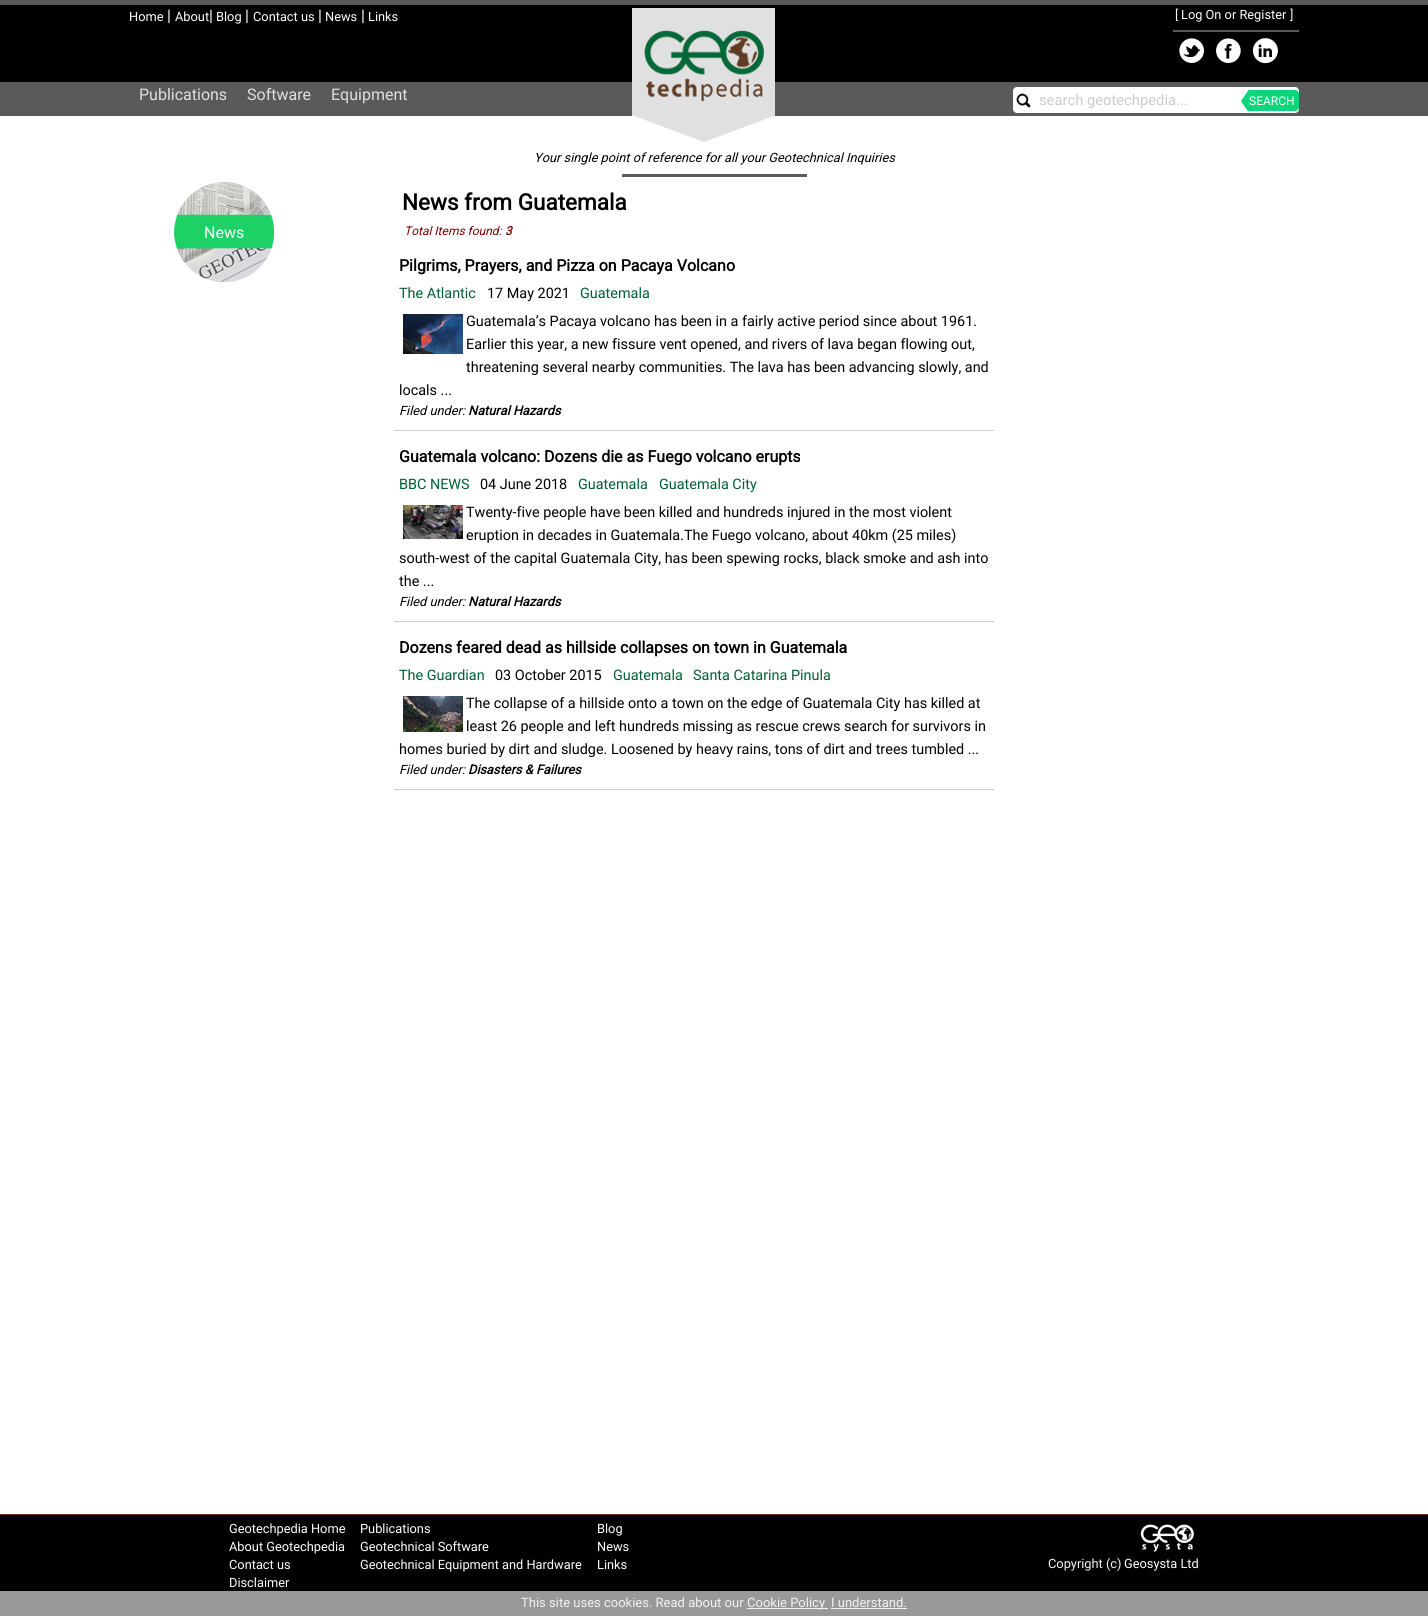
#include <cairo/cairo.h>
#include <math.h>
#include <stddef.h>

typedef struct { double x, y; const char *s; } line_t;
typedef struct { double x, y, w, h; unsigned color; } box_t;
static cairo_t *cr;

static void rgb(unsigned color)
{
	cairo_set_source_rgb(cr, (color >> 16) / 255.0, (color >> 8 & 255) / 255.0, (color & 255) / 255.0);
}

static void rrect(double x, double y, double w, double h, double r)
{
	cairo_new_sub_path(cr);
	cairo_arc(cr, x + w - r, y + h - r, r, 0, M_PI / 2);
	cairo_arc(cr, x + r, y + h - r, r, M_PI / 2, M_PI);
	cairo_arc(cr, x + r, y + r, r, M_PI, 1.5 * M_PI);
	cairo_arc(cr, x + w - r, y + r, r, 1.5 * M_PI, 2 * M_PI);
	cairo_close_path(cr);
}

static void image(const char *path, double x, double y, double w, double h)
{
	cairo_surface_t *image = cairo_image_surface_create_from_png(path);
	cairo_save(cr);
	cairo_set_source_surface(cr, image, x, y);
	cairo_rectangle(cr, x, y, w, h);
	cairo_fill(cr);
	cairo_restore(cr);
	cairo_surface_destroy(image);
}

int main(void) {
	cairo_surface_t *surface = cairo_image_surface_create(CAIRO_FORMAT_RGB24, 1428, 1616);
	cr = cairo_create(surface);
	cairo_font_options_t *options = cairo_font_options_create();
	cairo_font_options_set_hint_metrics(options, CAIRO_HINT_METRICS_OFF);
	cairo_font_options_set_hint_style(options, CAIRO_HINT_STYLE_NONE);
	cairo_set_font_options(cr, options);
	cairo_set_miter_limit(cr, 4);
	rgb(0xffffff);
	cairo_paint(cr);
	{
		static const box_t items[] = {
			{0, 5, 1428, 77, 0x000000},
			{0, 0, 1428, 5, 0x5a5a5a},
			{0, 82, 1428, 34, 0x5a5a5a},
		};
		for (size_t i = 0; i < sizeof items / sizeof *items; i++) {
			rgb(items[i].color);
			cairo_rectangle(cr, items[i].x, items[i].y, items[i].w, items[i].h);
			cairo_fill(cr);
		}
	}
	image("img/1.png", 632, 8, 143, 134);
	cairo_rectangle(cr, 1173, 30, 126, 2);
	cairo_fill(cr);
	image("img/2.png", 1179, 38, 25, 25);
	image("img/3.png", 1216, 38, 25, 25);
	image("img/4.png", 1252, 38, 26, 26);
	rgb(0xffffff);
	rrect(1013, 87, 286, 26, 4);
	cairo_fill(cr);
	image("img/5.png", 1016, 93, 15, 15);
	rgb(0x0ad67a);
	rrect(1241, 90, 58, 21, 4);
	cairo_fill(cr);
	image("img/6.png", 1241, 90, 8, 21);
	rgb(0x5a5a5a);
	cairo_rectangle(cr, 622, 174, 185, 3);
	cairo_fill(cr);
	image("img/7.png", 174, 182, 100, 100);
	rgb(0xcccccc);
	cairo_rectangle(cr, 394, 430, 600, 1);
	cairo_fill(cr);
	image("img/8.png", 403, 314, 60, 40);
	cairo_rectangle(cr, 394, 621, 600, 1);
	cairo_fill(cr);
	image("img/9.png", 403, 505, 60, 34);
	cairo_rectangle(cr, 394, 789, 600, 1);
	cairo_fill(cr);
	image("img/10.png", 403, 696, 60, 36);
	rgb(0x000000);
	cairo_rectangle(cr, 0, 1515, 1428, 76);
	cairo_fill(cr);
	rgb(0x613c24);
	cairo_rectangle(cr, 0, 1514, 1428, 1);
	cairo_fill(cr);
	image("img/11.png", 1140, 1524, 54, 28);
	{
		static const box_t items[] = {
			{0, 1591, 1428, 25, 0x999999},
			{747, 1608, 81, 1, 0xf2f2f2},
			{831, 1608, 76, 1, 0xf2f2f2},
		};
		for (size_t i = 0; i < sizeof items / sizeof *items; i++) {
			rgb(items[i].color);
			cairo_rectangle(cr, items[i].x, items[i].y, items[i].w, items[i].h);
			cairo_fill(cr);
		}
	}
	cairo_select_font_face(cr, "Roboto", CAIRO_FONT_SLANT_NORMAL, CAIRO_FONT_WEIGHT_NORMAL);
	cairo_set_font_size(cr, 12.8);
	rgb(0xffffff);
	cairo_move_to(cr, 129, 21);
	cairo_show_text(cr, "Home");
	cairo_set_font_size(cr, 16);
	cairo_move_to(cr, 167, 21);
	cairo_show_text(cr, "|");
	cairo_set_font_size(cr, 12.8);
	cairo_move_to(cr, 175, 21);
	cairo_show_text(cr, "About");
	cairo_set_font_size(cr, 16);
	cairo_move_to(cr, 209, 21);
	cairo_show_text(cr, "|");
	cairo_set_font_size(cr, 12.8);
	cairo_move_to(cr, 216, 21);
	cairo_show_text(cr, "Blog");
	cairo_set_font_size(cr, 16);
	cairo_move_to(cr, 245, 21);
	cairo_show_text(cr, "|");
	cairo_set_font_size(cr, 12.8);
	cairo_move_to(cr, 253, 21);
	cairo_show_text(cr, "Contact us");
	cairo_set_font_size(cr, 16);
	cairo_move_to(cr, 318, 21);
	cairo_show_text(cr, "|");
	cairo_set_font_size(cr, 12.8);
	cairo_move_to(cr, 325, 21);
	cairo_show_text(cr, "News");
	cairo_set_font_size(cr, 16);
	cairo_move_to(cr, 361, 21);
	cairo_show_text(cr, "|");
	cairo_set_font_size(cr, 12.8);
	cairo_move_to(cr, 368, 21);
	cairo_show_text(cr, "Links");
	rgb(0xf2f2f2);
	cairo_move_to(cr, 1175, 19);
	cairo_show_text(cr, "[");
	rgb(0xffffff);
	cairo_move_to(cr, 1181, 19);
	cairo_show_text(cr, "Log On or Register");
	rgb(0xf2f2f2);
	cairo_move_to(cr, 1290, 19);
	cairo_show_text(cr, "]");
	cairo_set_font_size(cr, 16);
	rgb(0xe0e0e0);
	{
		static const line_t items[] = {
			{139, 100, "Publications"},
			{247, 100, "Software"},
			{331, 100, "Equipment"},
		};
		for (size_t i = 0; i < sizeof items / sizeof *items; i++) {
			cairo_move_to(cr, items[i].x, items[i].y);
			cairo_show_text(cr, items[i].s);
		}
	}
	cairo_set_font_size(cr, 14.75);
	rgb(0xcccccc);
	cairo_move_to(cr, 1039, 105);
	cairo_show_text(cr, "search geotechpedia...");
	cairo_set_font_size(cr, 12);
	rgb(0xffffff);
	cairo_move_to(cr, 1249, 105);
	cairo_show_text(cr, "SEARCH");
	cairo_select_font_face(cr, "Roboto", CAIRO_FONT_SLANT_ITALIC, CAIRO_FONT_WEIGHT_NORMAL);
	cairo_set_font_size(cr, 12.8);
	rgb(0x000000);
	cairo_move_to(cr, 534, 162);
	cairo_show_text(cr, "Your single point of reference for all your Geotechnical Inquiries");
	cairo_select_font_face(cr, "Roboto", CAIRO_FONT_SLANT_NORMAL, CAIRO_FONT_WEIGHT_NORMAL);
	cairo_set_font_size(cr, 16);
	rgb(0xffffff);
	cairo_move_to(cr, 204, 238);
	cairo_show_text(cr, "News");
	cairo_select_font_face(cr, "Roboto", CAIRO_FONT_SLANT_NORMAL, CAIRO_FONT_WEIGHT_BOLD);
	cairo_set_font_size(cr, 22.5);
	rgb(0x000000);
	cairo_move_to(cr, 402, 210);
	cairo_show_text(cr, "News from Guatemala");
	cairo_select_font_face(cr, "Roboto", CAIRO_FONT_SLANT_ITALIC, CAIRO_FONT_WEIGHT_NORMAL);
	cairo_set_font_size(cr, 12);
	rgb(0x800000);
	cairo_move_to(cr, 404, 235);
	cairo_show_text(cr, "Total Items found:");
	cairo_select_font_face(cr, "Roboto", CAIRO_FONT_SLANT_ITALIC, CAIRO_FONT_WEIGHT_BOLD);
	cairo_move_to(cr, 505, 235);
	cairo_show_text(cr, "3");
	cairo_select_font_face(cr, "Roboto", CAIRO_FONT_SLANT_NORMAL, CAIRO_FONT_WEIGHT_BOLD);
	cairo_set_font_size(cr, 16);
	rgb(0x000000);
	cairo_move_to(cr, 399, 271);
	cairo_show_text(cr, "Pilgrims, Prayers, and Pizza on Pacaya Volcano");
	cairo_select_font_face(cr, "Roboto", CAIRO_FONT_SLANT_NORMAL, CAIRO_FONT_WEIGHT_NORMAL);
	cairo_set_font_size(cr, 14.4);
	rgb(0x005f32);
	cairo_move_to(cr, 399, 298);
	cairo_show_text(cr, "The Atlantic");
	rgb(0x000000);
	cairo_move_to(cr, 487, 298);
	cairo_show_text(cr, "17 May 2021");
	rgb(0x005f32);
	cairo_move_to(cr, 580, 298);
	cairo_show_text(cr, "Guatemala");
	rgb(0x000000);
	{
		static const line_t items[] = {
			{466, 326, "Guatemala’s Pacaya volcano has been in a fairly active period since about 1961."},
			{466, 349, "Earlier this year, a new fissure vent opened, and rivers of lava began flowing out,"},
			{466, 372, "threatening several nearby communities. The lava has been advancing slowly, and"},
			{399, 395, "locals ..."},
		};
		for (size_t i = 0; i < sizeof items / sizeof *items; i++) {
			cairo_move_to(cr, items[i].x, items[i].y);
			cairo_show_text(cr, items[i].s);
		}
	}
	cairo_select_font_face(cr, "Roboto", CAIRO_FONT_SLANT_ITALIC, CAIRO_FONT_WEIGHT_NORMAL);
	cairo_set_font_size(cr, 12.8);
	cairo_move_to(cr, 399, 415);
	cairo_show_text(cr, "Filed under:");
	cairo_select_font_face(cr, "Roboto", CAIRO_FONT_SLANT_ITALIC, CAIRO_FONT_WEIGHT_BOLD);
	cairo_move_to(cr, 468, 415);
	cairo_show_text(cr, "Natural Hazards");
	cairo_select_font_face(cr, "Roboto", CAIRO_FONT_SLANT_NORMAL, CAIRO_FONT_WEIGHT_BOLD);
	cairo_set_font_size(cr, 16);
	cairo_move_to(cr, 399, 462);
	cairo_show_text(cr, "Guatemala volcano: Dozens die as Fuego volcano erupts");
	cairo_select_font_face(cr, "Roboto", CAIRO_FONT_SLANT_NORMAL, CAIRO_FONT_WEIGHT_NORMAL);
	cairo_set_font_size(cr, 14.4);
	rgb(0x005f32);
	cairo_move_to(cr, 399, 489);
	cairo_show_text(cr, "BBC NEWS");
	rgb(0x000000);
	cairo_move_to(cr, 480, 489);
	cairo_show_text(cr, "04 June 2018");
	rgb(0x005f32);
	cairo_move_to(cr, 578, 489);
	cairo_show_text(cr, "Guatemala");
	cairo_move_to(cr, 659, 489);
	cairo_show_text(cr, "Guatemala City");
	rgb(0x000000);
	{
		static const line_t items[] = {
			{466, 517, "Twenty-five people have been killed and hundreds injured in the most violent"},
			{466, 540, "eruption in decades in Guatemala.The Fuego volcano, about 40km (25 miles)"},
			{399, 563, "south-west of the capital Guatemala City, has been spewing rocks, black smoke and ash into"},
			{399, 586, "the ..."},
		};
		for (size_t i = 0; i < sizeof items / sizeof *items; i++) {
			cairo_move_to(cr, items[i].x, items[i].y);
			cairo_show_text(cr, items[i].s);
		}
	}
	cairo_select_font_face(cr, "Roboto", CAIRO_FONT_SLANT_ITALIC, CAIRO_FONT_WEIGHT_NORMAL);
	cairo_set_font_size(cr, 12.8);
	cairo_move_to(cr, 399, 606);
	cairo_show_text(cr, "Filed under:");
	cairo_select_font_face(cr, "Roboto", CAIRO_FONT_SLANT_ITALIC, CAIRO_FONT_WEIGHT_BOLD);
	cairo_move_to(cr, 468, 606);
	cairo_show_text(cr, "Natural Hazards");
	cairo_select_font_face(cr, "Roboto", CAIRO_FONT_SLANT_NORMAL, CAIRO_FONT_WEIGHT_BOLD);
	cairo_set_font_size(cr, 16);
	cairo_move_to(cr, 399, 653);
	cairo_show_text(cr, "Dozens feared dead as hillside collapses on town in Guatemala");
	cairo_select_font_face(cr, "Roboto", CAIRO_FONT_SLANT_NORMAL, CAIRO_FONT_WEIGHT_NORMAL);
	cairo_set_font_size(cr, 14.4);
	rgb(0x005f32);
	cairo_move_to(cr, 399, 680);
	cairo_show_text(cr, "The Guardian");
	rgb(0x000000);
	cairo_move_to(cr, 495, 680);
	cairo_show_text(cr, "03 October 2015");
	rgb(0x005f32);
	cairo_move_to(cr, 613, 680);
	cairo_show_text(cr, "Guatemala");
	cairo_move_to(cr, 693, 680);
	cairo_show_text(cr, "Santa Catarina Pinula");
	rgb(0x000000);
	{
		static const line_t items[] = {
			{466, 708, "The collapse of a hillside onto a town on the edge of Guatemala City has killed at"},
			{466, 731, "least 26 people and left hundreds missing as rescue crews search for survivors in"},
			{399, 754, "homes buried by dirt and sludge. Loosened by heavy rains, tons of dirt and trees tumbled ..."},
		};
		for (size_t i = 0; i < sizeof items / sizeof *items; i++) {
			cairo_move_to(cr, items[i].x, items[i].y);
			cairo_show_text(cr, items[i].s);
		}
	}
	cairo_select_font_face(cr, "Roboto", CAIRO_FONT_SLANT_ITALIC, CAIRO_FONT_WEIGHT_NORMAL);
	cairo_set_font_size(cr, 12.8);
	cairo_move_to(cr, 399, 774);
	cairo_show_text(cr, "Filed under:");
	cairo_select_font_face(cr, "Roboto", CAIRO_FONT_SLANT_ITALIC, CAIRO_FONT_WEIGHT_BOLD);
	cairo_move_to(cr, 468, 774);
	cairo_show_text(cr, "Disasters & Failures");
	cairo_select_font_face(cr, "Roboto", CAIRO_FONT_SLANT_NORMAL, CAIRO_FONT_WEIGHT_NORMAL);
	rgb(0xffffff);
	{
		static const line_t items[] = {
			{229, 1533, "Geotechpedia Home"},
			{229, 1551, "About Geotechpedia"},
			{229, 1569, "Contact us"},
			{229, 1587, "Disclaimer"},
			{360, 1533, "Publications"},
			{360, 1551, "Geotechnical Software"},
			{360, 1569, "Geotechnical Equipment and Hardware"},
			{597, 1533, "Blog"},
			{597, 1551, "News"},
			{597, 1569, "Links"},
		};
		for (size_t i = 0; i < sizeof items / sizeof *items; i++) {
			cairo_move_to(cr, items[i].x, items[i].y);
			cairo_show_text(cr, items[i].s);
		}
	}
	rgb(0xf2f2f2);
	cairo_move_to(cr, 1048, 1568);
	cairo_show_text(cr, "Copyright (c)");
	rgb(0xffffff);
	cairo_move_to(cr, 1124, 1568);
	cairo_show_text(cr, "Geosysta Ltd");
	cairo_set_font_size(cr, 13);
	rgb(0xf2f2f2);
	{
		static const line_t items[] = {
			{521, 1607, "This site uses cookies. Read about our"},
			{747, 1607, "Cookie Policy"},
			{831, 1607, "I understand."},
		};
		for (size_t i = 0; i < sizeof items / sizeof *items; i++) {
			cairo_move_to(cr, items[i].x, items[i].y);
			cairo_show_text(cr, items[i].s);
		}
	}
	cairo_surface_write_to_png(surface, "page.png");
	cairo_font_options_destroy(options);
	cairo_destroy(cr);
	cairo_surface_destroy(surface);
	return 0;
}
